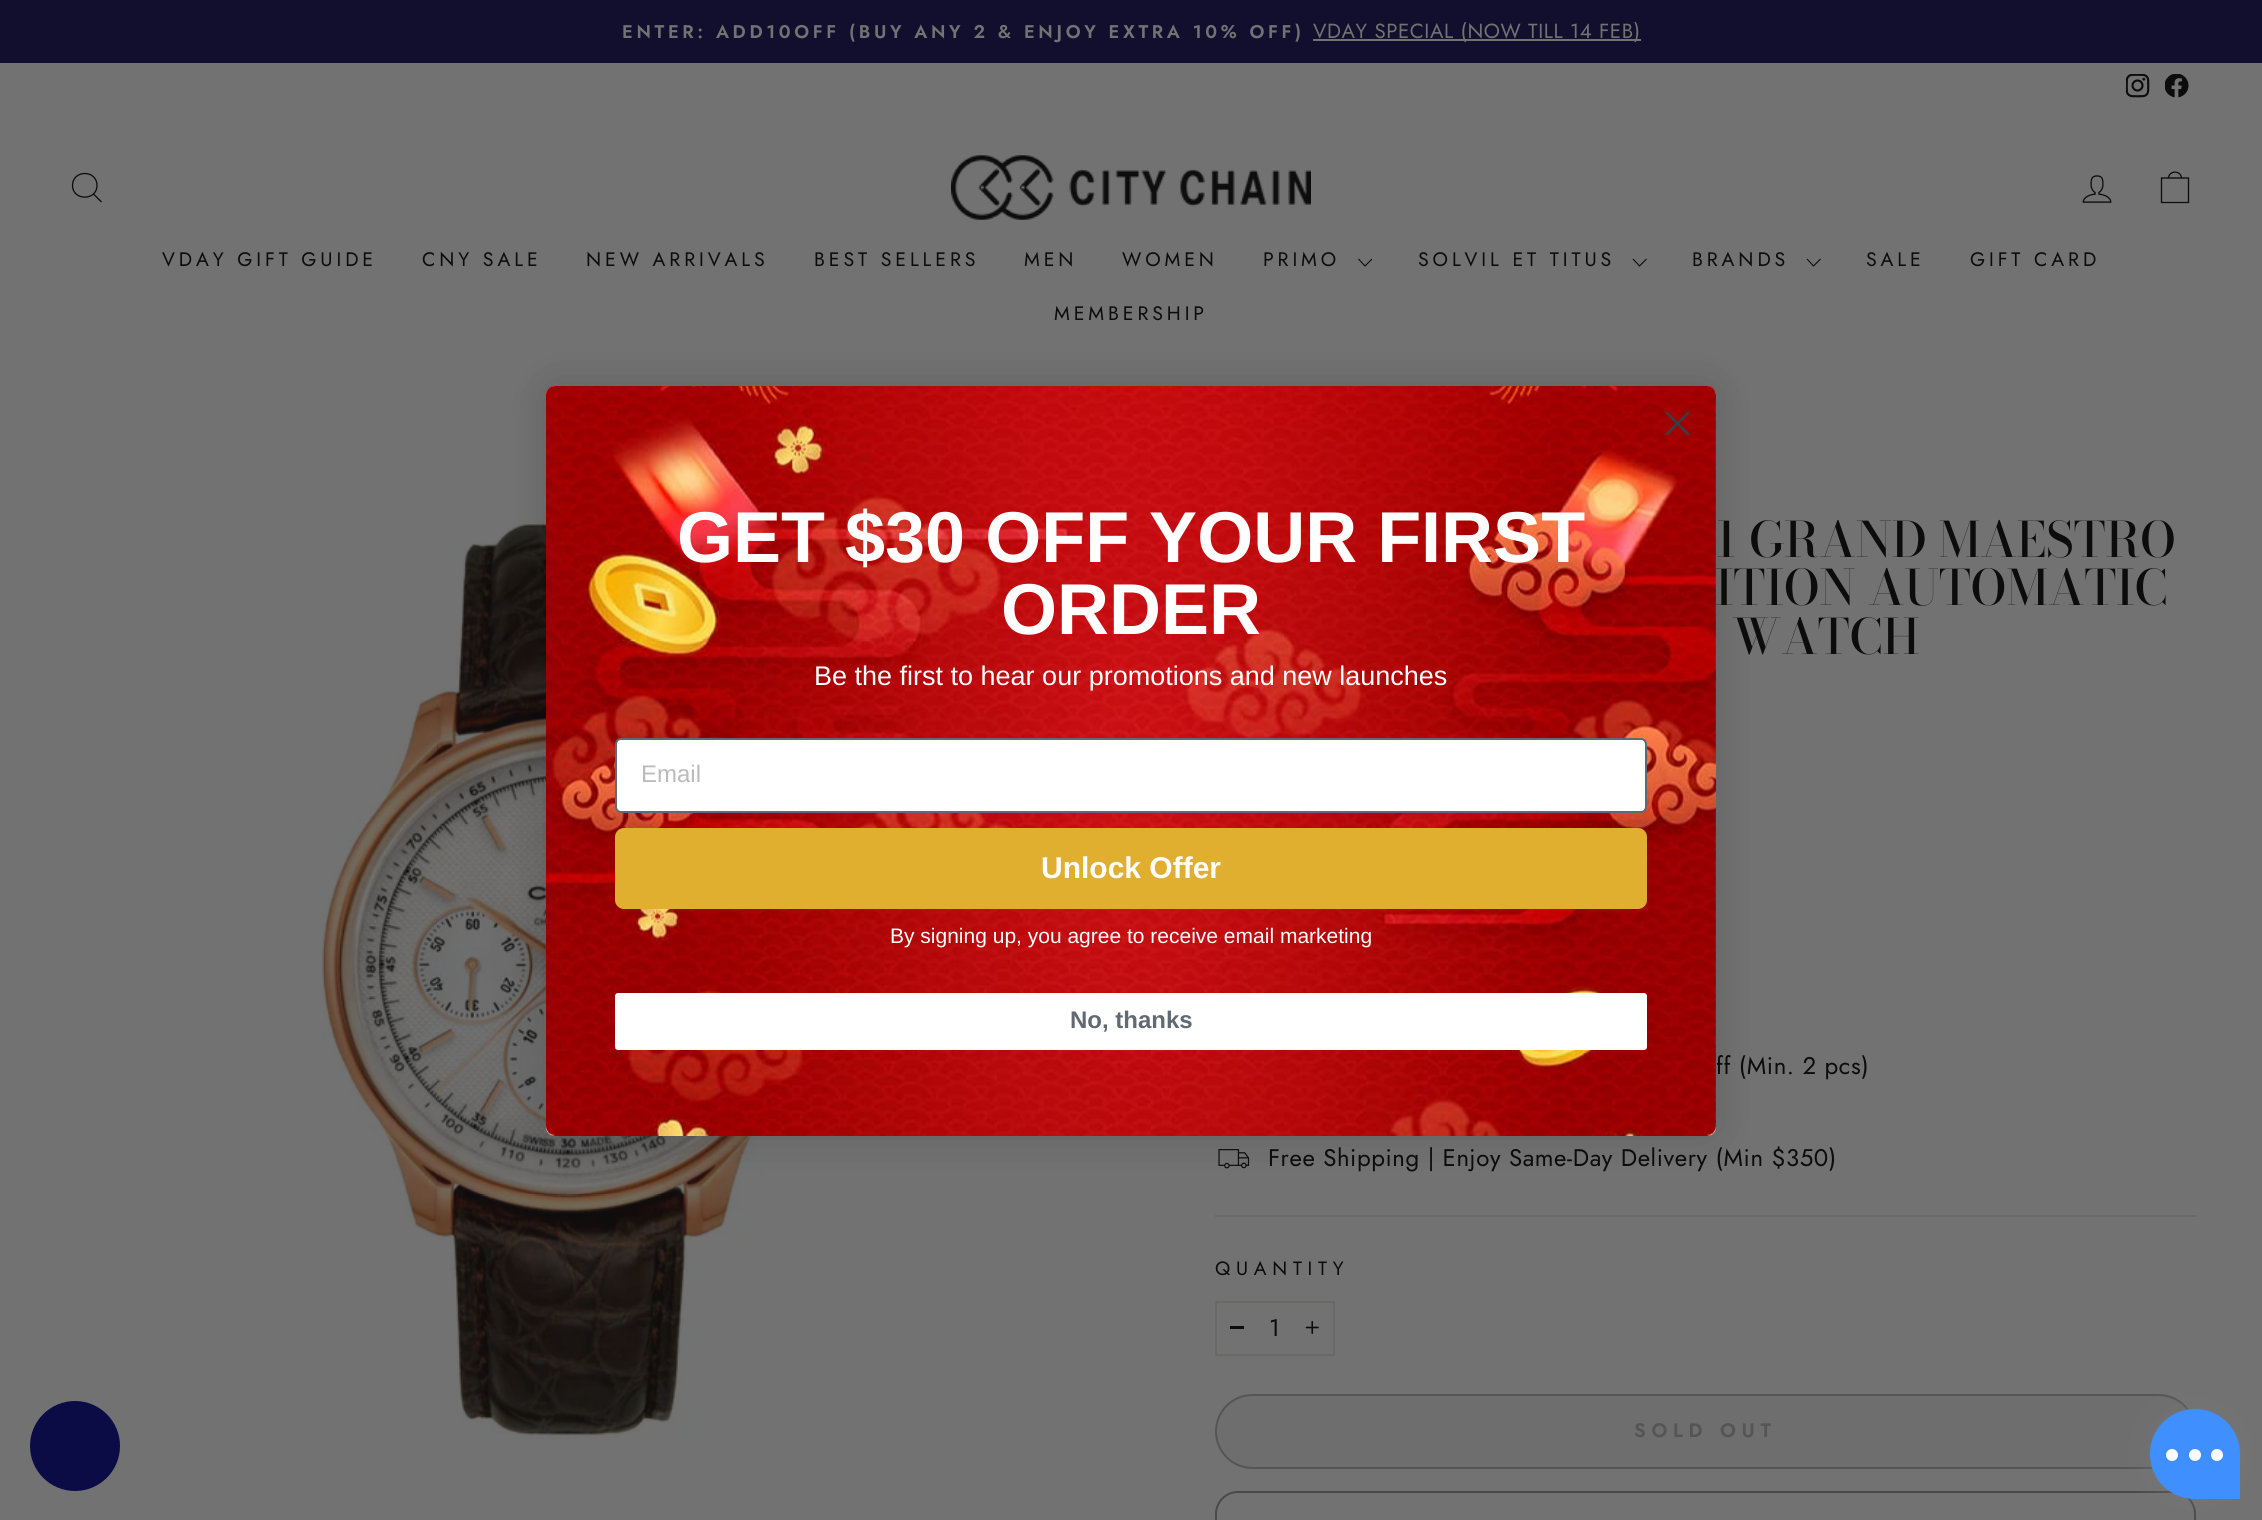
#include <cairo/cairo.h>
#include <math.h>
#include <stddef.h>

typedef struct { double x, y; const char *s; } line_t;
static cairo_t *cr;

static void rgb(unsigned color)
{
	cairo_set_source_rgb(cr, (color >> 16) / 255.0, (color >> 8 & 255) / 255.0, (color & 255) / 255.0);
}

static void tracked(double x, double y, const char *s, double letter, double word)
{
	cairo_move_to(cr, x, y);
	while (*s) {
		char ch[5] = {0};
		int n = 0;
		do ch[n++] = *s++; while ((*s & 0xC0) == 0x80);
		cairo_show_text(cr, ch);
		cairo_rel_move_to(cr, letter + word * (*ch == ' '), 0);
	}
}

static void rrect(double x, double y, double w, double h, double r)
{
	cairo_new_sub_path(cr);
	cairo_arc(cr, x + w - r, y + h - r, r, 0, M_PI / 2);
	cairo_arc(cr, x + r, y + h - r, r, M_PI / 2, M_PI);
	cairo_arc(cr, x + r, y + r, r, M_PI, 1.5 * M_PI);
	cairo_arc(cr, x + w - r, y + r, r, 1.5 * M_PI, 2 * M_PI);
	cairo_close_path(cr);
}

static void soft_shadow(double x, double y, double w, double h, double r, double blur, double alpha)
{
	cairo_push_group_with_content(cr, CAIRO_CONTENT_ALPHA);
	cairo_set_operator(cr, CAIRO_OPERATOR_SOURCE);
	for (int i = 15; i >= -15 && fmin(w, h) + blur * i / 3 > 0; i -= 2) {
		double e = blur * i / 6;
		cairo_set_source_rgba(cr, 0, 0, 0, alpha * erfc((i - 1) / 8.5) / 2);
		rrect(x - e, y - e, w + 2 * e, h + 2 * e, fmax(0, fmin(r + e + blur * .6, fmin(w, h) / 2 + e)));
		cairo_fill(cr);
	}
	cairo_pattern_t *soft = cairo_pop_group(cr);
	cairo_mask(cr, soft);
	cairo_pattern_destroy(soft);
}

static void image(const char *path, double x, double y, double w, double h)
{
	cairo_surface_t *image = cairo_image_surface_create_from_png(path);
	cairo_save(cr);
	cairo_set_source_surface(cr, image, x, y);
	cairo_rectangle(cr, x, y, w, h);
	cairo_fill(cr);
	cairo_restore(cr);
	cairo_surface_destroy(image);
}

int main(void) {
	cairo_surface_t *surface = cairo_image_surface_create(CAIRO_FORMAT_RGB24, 2262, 1520);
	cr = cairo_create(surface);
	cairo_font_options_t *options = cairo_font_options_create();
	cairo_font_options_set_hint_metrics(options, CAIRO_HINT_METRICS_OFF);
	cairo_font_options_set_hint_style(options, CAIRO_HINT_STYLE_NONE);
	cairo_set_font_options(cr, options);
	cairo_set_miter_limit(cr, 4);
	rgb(0x727272);
	cairo_paint(cr);
	rgb(0x110f2d);
	cairo_rectangle(cr, 0, 0, 2262, 63);
	cairo_fill(cr);
	rgb(0x727272);
	cairo_rectangle(cr, 1313, 39, 328, 2);
	cairo_fill(cr);
	image("img/1.png", 2126, 74, 24, 24);
	image("img/2.png", 2165, 74, 24, 24);
	cairo_new_path(cr);
	cairo_move_to(cr, 97, 185.5);
	cairo_curve_to(cr, 97, 201, 72.5, 201, 72.5, 185.5);
	cairo_curve_to(cr, 72.5, 169.5, 97, 169.5, 97, 185.5);
	cairo_close_path(cr);
	cairo_move_to(cr, 101.5, 202);
	cairo_line_to(cr, 93.5, 194);
	rgb(0x0c0c0c);
	cairo_set_line_width(cr, 1.3);
	cairo_stroke(cr);
	image("img/3.png", 951, 155, 360, 65);
	image("img/4.png", 2082, 175, 30, 28);
	cairo_new_path(cr);
	cairo_move_to(cr, 2161.5, 178);
	cairo_line_to(cr, 2188.5, 178);
	cairo_line_to(cr, 2188.5, 202.5);
	cairo_line_to(cr, 2161.5, 202.5);
	cairo_close_path(cr);
	cairo_move_to(cr, 2168.5, 178.5);
	cairo_curve_to(cr, 2168.5, 170, 2181.5, 170, 2181.5, 178.5);
	cairo_stroke(cr);
	cairo_new_path(cr);
	cairo_move_to(cr, 1358.5, 259);
	cairo_line_to(cr, 1365, 266);
	cairo_line_to(cr, 1372, 259);
	cairo_set_line_width(cr, 1.1);
	cairo_stroke(cr);
	cairo_new_path(cr);
	cairo_move_to(cr, 1633, 259);
	cairo_line_to(cr, 1639.5, 266);
	cairo_line_to(cr, 1646.5, 259);
	cairo_stroke(cr);
	cairo_new_path(cr);
	cairo_move_to(cr, 1807, 259);
	cairo_line_to(cr, 1813.5, 266);
	cairo_line_to(cr, 1820.5, 259);
	cairo_stroke(cr);
	image("img/5.png", 321, 519, 538, 920);
	image("img/6.png", 1218, 1149, 32, 20);
	rgb(0x696966);
	cairo_rectangle(cr, 1215, 1215, 981, 2);
	cairo_fill(cr);
	cairo_rectangle(cr, 1216, 1302, 118, 53);
	cairo_set_line_width(cr, 2);
	cairo_stroke(cr);
	rgb(0x0c0c0c);
	cairo_rectangle(cr, 1230, 1326, 14, 3);
	cairo_fill(cr);
	image("img/7.png", 1305, 1321, 14, 13);
	rgb(0x6e6e6e);
	rrect(1216, 1395, 979, 73, 36.5);
	cairo_fill_preserve(cr);
	rgb(0x555555);
	cairo_stroke(cr);
	rrect(1216, 1492, 979, 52, 22);
	rgb(0x494949);
	cairo_stroke(cr);
	rgb(0x000000);
	soft_shadow(546, 386, 1170, 750, 9, 22.5, 0.15);
	rgb(0xffffff);
	rrect(546, 386, 1170, 750, 9);
	cairo_fill(cr);
	image("img/8.png", 546, 386, 1170, 750);
	cairo_new_path(cr);
	cairo_move_to(cr, 1667, 413);
	cairo_line_to(cr, 1688, 434);
	cairo_move_to(cr, 1667, 434);
	cairo_line_to(cr, 1688, 413);
	cairo_close_path(cr);
	rgb(0x373f47);
	cairo_set_line_width(cr, 2.6);
	cairo_set_line_cap(cr, CAIRO_LINE_CAP_ROUND);
	cairo_set_line_join(cr, CAIRO_LINE_JOIN_ROUND);
	cairo_stroke(cr);
	rgb(0xffffff);
	rrect(616, 739, 1030, 73, 5);
	cairo_fill_preserve(cr);
	rgb(0x606a72);
	cairo_set_line_width(cr, 2);
	cairo_set_line_cap(cr, CAIRO_LINE_CAP_BUTT);
	cairo_set_line_join(cr, CAIRO_LINE_JOIN_MITER);
	cairo_stroke(cr);
	rgb(0xe0af30);
	rrect(615, 828, 1032, 81, 9);
	cairo_fill(cr);
	rgb(0xffffff);
	rrect(615, 993, 1032, 57, 3);
	cairo_fill(cr);
	rgb(0x0b0b45);
	cairo_arc(cr, 75, 1446, 45, 0, 2 * M_PI);
	cairo_fill(cr);
	rgb(0x777777);
	soft_shadow(2150, 1409, 90, 90, 45, 15, 0.64);
	rgb(0x408fff);
	cairo_new_path(cr);
	cairo_move_to(cr, 2195, 1409);
	cairo_curve_to(cr, 2220, 1409, 2240, 1429, 2240, 1454);
	cairo_line_to(cr, 2240, 1499);
	cairo_line_to(cr, 2195, 1499);
	cairo_curve_to(cr, 2170, 1499, 2150, 1479, 2150, 1454);
	cairo_curve_to(cr, 2150, 1429, 2170, 1409, 2195, 1409);
	cairo_close_path(cr);
	cairo_fill(cr);
	rgb(0xffffff);
	cairo_arc(cr, 2172, 1455, 6, 0, 2 * M_PI);
	cairo_fill(cr);
	cairo_arc(cr, 2195, 1455, 6, 0, 2 * M_PI);
	cairo_fill(cr);
	cairo_arc(cr, 2217, 1455, 6, 0, 2 * M_PI);
	cairo_fill(cr);
	cairo_select_font_face(cr, "Jost SemiBold", CAIRO_FONT_SLANT_NORMAL, CAIRO_FONT_WEIGHT_NORMAL);
	cairo_set_font_size(cr, 18.35);
	rgb(0x727272);
	tracked(622, 38, "ENTER: ADD10OFF (BUY ANY 2 & ENJOY EXTRA 10% OFF)", 3.65, 0);
	cairo_select_font_face(cr, "Jost", CAIRO_FONT_SLANT_NORMAL, CAIRO_FONT_WEIGHT_NORMAL);
	cairo_set_font_size(cr, 20.4);
	tracked(1313, 38, "VDAY SPECIAL (NOW TILL 14 FEB)", 0.6, 0);
	cairo_set_font_size(cr, 19.5);
	rgb(0x0c0c0c);
	{
		static const line_t items[] = {
			{162, 266, "VDAY GIFT GUIDE"},
			{422, 266, "CNY SALE"},
			{586, 266, "NEW ARRIVALS"},
			{814, 266, "BEST SELLERS"},
			{1024, 266, "MEN"},
			{1122, 266, "WOMEN"},
			{1263, 266, "PRIMO"},
			{1418, 266, "SOLVIL ET TITUS"},
			{1692, 266, "BRANDS"},
			{1866, 266, "SALE"},
			{1970, 266, "GIFT CARD"},
			{1054, 320, "MEMBERSHIP"},
		};
		for (size_t i = 0; i < sizeof items / sizeof *items; i++) {
			tracked(items[i].x, items[i].y, items[i].s, 3.9, 0);
		}
	}
	cairo_select_font_face(cr, "Bodoni Moda Medium", CAIRO_FONT_SLANT_NORMAL, CAIRO_FONT_WEIGHT_NORMAL);
	cairo_set_font_size(cr, 48.5);
	{
		static const line_t items[] = {
			{1715, 557, "1 GRAND MAESTRO"},
			{1715, 605, "ITION AUTOMATIC"},
			{1732, 654, "WATCH"},
		};
		for (size_t i = 0; i < sizeof items / sizeof *items; i++) {
			cairo_move_to(cr, items[i].x, items[i].y);
			cairo_show_text(cr, items[i].s);
		}
	}
	cairo_select_font_face(cr, "Jost", CAIRO_FONT_SLANT_NORMAL, CAIRO_FONT_WEIGHT_NORMAL);
	cairo_set_font_size(cr, 24);
	tracked(1716, 1074, "ff (Min. 2 pcs)", 0.6, 0);
	tracked(1268, 1166, "Free Shipping | Enjoy Same-Day Delivery (Min $350)", 0.6, 0);
	cairo_set_font_size(cr, 19.25);
	tracked(1215, 1275, "QUANTITY", 5.75, 0);
	cairo_set_font_size(cr, 24);
	tracked(1269, 1336, "1", 0.6, 0);
	cairo_select_font_face(cr, "Jost SemiBold", CAIRO_FONT_SLANT_NORMAL, CAIRO_FONT_WEIGHT_NORMAL);
	cairo_set_font_size(cr, 19.5);
	rgb(0x555555);
	tracked(1634, 1437, "SOLD OUT", 5.75, 0);
	cairo_select_font_face(cr, "Liberation Sans", CAIRO_FONT_SLANT_NORMAL, CAIRO_FONT_WEIGHT_BOLD);
	cairo_set_font_size(cr, 72);
	rgb(0xffffff);
	cairo_move_to(cr, 677, 562);
	cairo_show_text(cr, "GET $30 OFF YOUR FIRST");
	cairo_move_to(cr, 1001, 634);
	cairo_show_text(cr, "ORDER");
	cairo_select_font_face(cr, "Liberation Sans", CAIRO_FONT_SLANT_NORMAL, CAIRO_FONT_WEIGHT_NORMAL);
	cairo_set_font_size(cr, 27);
	cairo_move_to(cr, 814, 685);
	cairo_show_text(cr, "Be the first to hear our promotions and new launches");
	cairo_set_font_size(cr, 24);
	rgb(0xbbbbbb);
	cairo_move_to(cr, 641, 782);
	cairo_show_text(cr, "Email");
	cairo_select_font_face(cr, "Liberation Sans", CAIRO_FONT_SLANT_NORMAL, CAIRO_FONT_WEIGHT_BOLD);
	cairo_set_font_size(cr, 30);
	rgb(0xffffff);
	cairo_move_to(cr, 1041, 878);
	cairo_show_text(cr, "Unlock Offer");
	cairo_select_font_face(cr, "Liberation Sans", CAIRO_FONT_SLANT_NORMAL, CAIRO_FONT_WEIGHT_NORMAL);
	cairo_set_font_size(cr, 21);
	cairo_move_to(cr, 890, 943);
	cairo_show_text(cr, "By signing up, you agree to receive email marketing");
	cairo_select_font_face(cr, "Liberation Sans", CAIRO_FONT_SLANT_NORMAL, CAIRO_FONT_WEIGHT_BOLD);
	cairo_set_font_size(cr, 24);
	rgb(0x606a72);
	cairo_move_to(cr, 1070, 1028);
	cairo_show_text(cr, "No, thanks");
	cairo_surface_write_to_png(surface, "page.png");
	cairo_font_options_destroy(options);
	cairo_destroy(cr);
	cairo_surface_destroy(surface);
	return 0;
}
